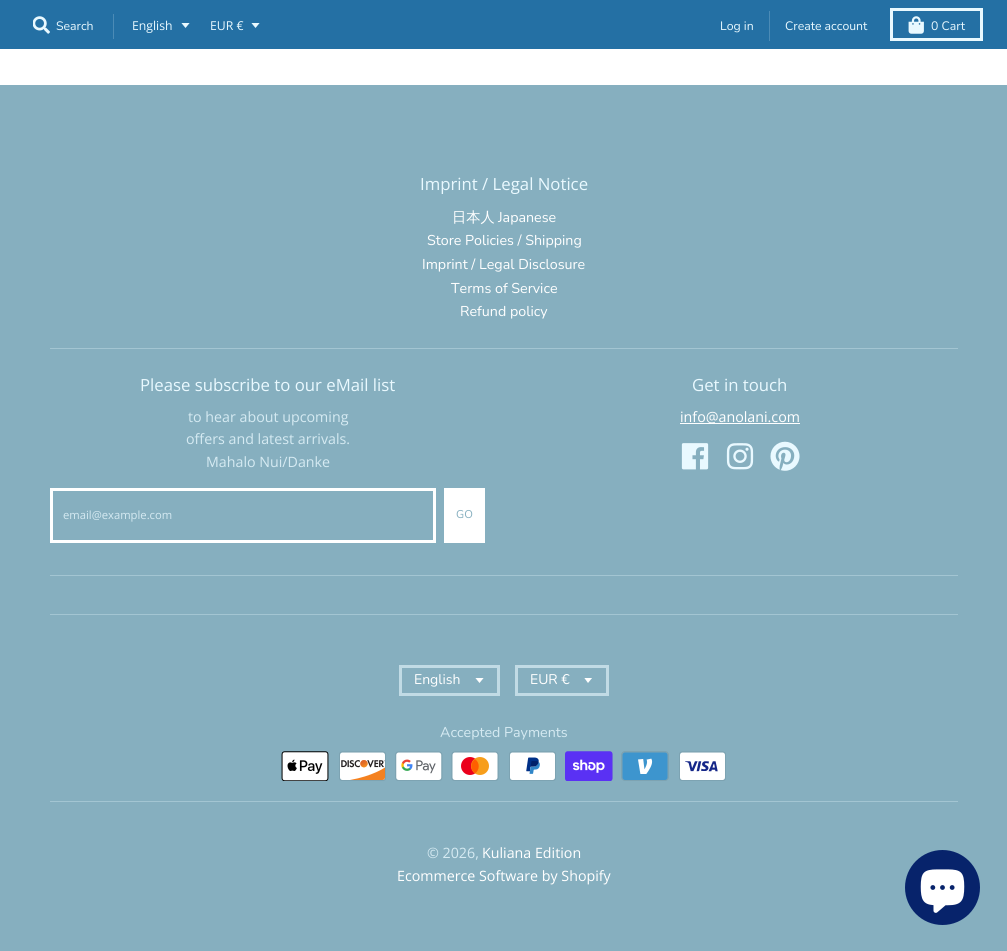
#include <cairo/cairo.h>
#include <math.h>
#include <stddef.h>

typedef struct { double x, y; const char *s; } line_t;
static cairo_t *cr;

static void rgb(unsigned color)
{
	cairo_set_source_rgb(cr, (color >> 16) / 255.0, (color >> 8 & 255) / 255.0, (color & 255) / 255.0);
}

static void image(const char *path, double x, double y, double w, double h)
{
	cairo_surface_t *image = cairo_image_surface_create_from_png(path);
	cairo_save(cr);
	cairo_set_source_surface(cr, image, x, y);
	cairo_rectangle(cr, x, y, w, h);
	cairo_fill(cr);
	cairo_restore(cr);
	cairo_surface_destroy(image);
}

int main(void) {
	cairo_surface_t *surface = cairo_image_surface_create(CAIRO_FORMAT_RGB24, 1007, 951);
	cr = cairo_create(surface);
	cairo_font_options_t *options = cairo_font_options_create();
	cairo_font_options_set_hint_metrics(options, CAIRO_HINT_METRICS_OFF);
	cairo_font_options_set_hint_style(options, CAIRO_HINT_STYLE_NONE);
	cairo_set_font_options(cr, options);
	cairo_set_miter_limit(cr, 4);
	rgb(0xffffff);
	cairo_paint(cr);
	rgb(0x2470a4);
	cairo_rectangle(cr, 0, 0, 1007, 49);
	cairo_fill(cr);
	image("img/1.png", 33, 16, 17, 18);
	rgb(0x4b8bb6);
	cairo_rectangle(cr, 113, 14, 1, 25);
	cairo_fill(cr);
	cairo_save(cr);
	cairo_rectangle(cr, 181, 23, 10, 6);
	cairo_clip(cr);
	rgb(0xe9f9ff);
	cairo_new_path(cr);
	cairo_move_to(cr, 181, 22.5);
	cairo_line_to(cr, 185.5, 28);
	cairo_line_to(cr, 190, 22.5);
	cairo_close_path(cr);
	cairo_fill(cr);
	cairo_restore(cr);
	cairo_save(cr);
	cairo_rectangle(cr, 251, 23, 10, 6);
	cairo_clip(cr);
	rgb(0xe9f9ff);
	cairo_new_path(cr);
	cairo_move_to(cr, 251, 22.5);
	cairo_line_to(cr, 255.5, 28);
	cairo_line_to(cr, 260, 22.5);
	cairo_close_path(cr);
	cairo_fill(cr);
	cairo_restore(cr);
	cairo_rectangle(cr, 769, 11, 1, 30);
	cairo_fill(cr);
	cairo_rectangle(cr, 891.5, 9.5, 90, 30);
	rgb(0xe9f9ff);
	cairo_set_line_width(cr, 3);
	cairo_stroke(cr);
	image("img/2.png", 908, 16, 16, 18);
	rgb(0x86afbf);
	cairo_rectangle(cr, 0, 85, 1007, 866);
	cairo_fill(cr);
	rgb(0xa3c5d2);
	cairo_rectangle(cr, 50, 348, 908, 1);
	cairo_fill(cr);
	cairo_rectangle(cr, 51.5, 489.5, 383, 52);
	rgb(0xffffff);
	cairo_stroke(cr);
	cairo_rectangle(cr, 444, 488, 41, 55);
	cairo_fill(cr);
	cairo_rectangle(cr, 680, 423, 120, 1);
	cairo_fill(cr);
	image("img/3.png", 681, 443, 28, 27);
	image("img/4.png", 726, 443, 28, 27);
	image("img/5.png", 770, 441, 30, 30);
	rgb(0xa3c5d2);
	cairo_rectangle(cr, 50, 575, 908, 1);
	cairo_fill(cr);
	cairo_rectangle(cr, 50, 614, 908, 1);
	cairo_fill(cr);
	cairo_save(cr);
	cairo_rectangle(cr, 475, 678, 10, 6);
	cairo_clip(cr);
	rgb(0xffffff);
	cairo_new_path(cr);
	cairo_move_to(cr, 475, 677.5);
	cairo_line_to(cr, 479.5, 683);
	cairo_line_to(cr, 484, 677.5);
	cairo_close_path(cr);
	cairo_fill(cr);
	cairo_restore(cr);
	cairo_rectangle(cr, 400.5, 666.5, 98, 28);
	rgb(0xc1dbe5);
	cairo_stroke(cr);
	cairo_save(cr);
	cairo_rectangle(cr, 584, 678, 10, 6);
	cairo_clip(cr);
	rgb(0xffffff);
	cairo_new_path(cr);
	cairo_move_to(cr, 584, 677.5);
	cairo_line_to(cr, 588, 683);
	cairo_line_to(cr, 592.5, 677.5);
	cairo_close_path(cr);
	cairo_fill(cr);
	cairo_restore(cr);
	cairo_rectangle(cr, 516.5, 666.5, 91, 28);
	cairo_stroke(cr);
	image("img/6.png", 281, 751, 48, 30);
	image("img/7.png", 339, 751, 47, 30);
	image("img/8.png", 395, 751, 48, 30);
	image("img/9.png", 451, 751, 48, 30);
	image("img/10.png", 509, 751, 47, 30);
	image("img/11.png", 565, 751, 48, 30);
	image("img/12.png", 621, 751, 48, 30);
	image("img/13.png", 679, 751, 47, 30);
	rgb(0xa3c5d2);
	cairo_rectangle(cr, 50, 801, 908, 1);
	cairo_fill(cr);
	rgb(0x07236b);
	cairo_arc(cr, 942.5, 887.5, 37.5, 0, 2 * M_PI);
	cairo_fill(cr);
	image("img/14.png", 920, 869, 45, 44);
	cairo_select_font_face(cr, "Nunito", CAIRO_FONT_SLANT_NORMAL, CAIRO_FONT_WEIGHT_NORMAL);
	cairo_set_font_size(cr, 12.25);
	rgb(0xe9f9ff);
	cairo_move_to(cr, 56, 30);
	cairo_show_text(cr, "Search");
	cairo_select_font_face(cr, "Open Sans", CAIRO_FONT_SLANT_NORMAL, CAIRO_FONT_WEIGHT_NORMAL);
	cairo_move_to(cr, 132, 30);
	cairo_show_text(cr, "English");
	cairo_move_to(cr, 210, 30);
	cairo_show_text(cr, "EUR €");
	cairo_select_font_face(cr, "Nunito", CAIRO_FONT_SLANT_NORMAL, CAIRO_FONT_WEIGHT_NORMAL);
	{
		static const line_t items[] = {
			{720, 30, "Log in"},
			{785, 30, "Create account"},
			{931, 30, "0 Cart"},
		};
		for (size_t i = 0; i < sizeof items / sizeof *items; i++) {
			cairo_move_to(cr, items[i].x, items[i].y);
			cairo_show_text(cr, items[i].s);
		}
	}
	cairo_select_font_face(cr, "Open Sans", CAIRO_FONT_SLANT_NORMAL, CAIRO_FONT_WEIGHT_NORMAL);
	cairo_set_font_size(cr, 16.75);
	cairo_move_to(cr, 420, 190);
	cairo_show_text(cr, "Imprint / Legal Notice");
	cairo_select_font_face(cr, "WenQuanYi Zen Hei Medium", CAIRO_FONT_SLANT_NORMAL, CAIRO_FONT_WEIGHT_NORMAL);
	cairo_set_font_size(cr, 14.25);
	rgb(0xffffff);
	cairo_move_to(cr, 452, 222);
	cairo_show_text(cr, "日本人");
	cairo_select_font_face(cr, "Nunito", CAIRO_FONT_SLANT_NORMAL, CAIRO_FONT_WEIGHT_NORMAL);
	{
		static const line_t items[] = {
			{498, 222, "Japanese"},
			{427, 245, "Store Policies / Shipping"},
			{422, 269, "Imprint / Legal Disclosure"},
			{451, 293, "Terms of Service"},
			{460, 316, "Refund policy"},
		};
		for (size_t i = 0; i < sizeof items / sizeof *items; i++) {
			cairo_move_to(cr, items[i].x, items[i].y);
			cairo_show_text(cr, items[i].s);
		}
	}
	cairo_select_font_face(cr, "Open Sans", CAIRO_FONT_SLANT_NORMAL, CAIRO_FONT_WEIGHT_NORMAL);
	cairo_set_font_size(cr, 16.75);
	rgb(0xe9f9ff);
	cairo_move_to(cr, 140, 391);
	cairo_show_text(cr, "Please subscribe to our eMail list");
	cairo_set_font_size(cr, 14.25);
	rgb(0xd5eaf2);
	{
		static const line_t items[] = {
			{188, 422, "to hear about upcoming"},
			{186, 444, "offers and latest arrivals."},
			{206, 467, "Mahalo Nui/Danke"},
		};
		for (size_t i = 0; i < sizeof items / sizeof *items; i++) {
			cairo_move_to(cr, items[i].x, items[i].y);
			cairo_show_text(cr, items[i].s);
		}
	}
	cairo_set_font_size(cr, 11.25);
	cairo_move_to(cr, 63, 519);
	cairo_show_text(cr, "email@example.com");
	cairo_select_font_face(cr, "Nunito", CAIRO_FONT_SLANT_NORMAL, CAIRO_FONT_WEIGHT_NORMAL);
	rgb(0x86afbf);
	cairo_move_to(cr, 456, 518);
	cairo_show_text(cr, "GO");
	cairo_select_font_face(cr, "Open Sans", CAIRO_FONT_SLANT_NORMAL, CAIRO_FONT_WEIGHT_NORMAL);
	cairo_set_font_size(cr, 16.75);
	rgb(0xe9f9ff);
	cairo_move_to(cr, 692, 391);
	cairo_show_text(cr, "Get in touch");
	cairo_set_font_size(cr, 14.25);
	rgb(0xffffff);
	cairo_move_to(cr, 680, 422);
	cairo_show_text(cr, "info@anolani.com");
	cairo_select_font_face(cr, "Nunito", CAIRO_FONT_SLANT_NORMAL, CAIRO_FONT_WEIGHT_NORMAL);
	cairo_set_font_size(cr, 14);
	cairo_move_to(cr, 414, 684);
	cairo_show_text(cr, "English");
	cairo_move_to(cr, 530, 684);
	cairo_show_text(cr, "EUR €");
	cairo_set_font_size(cr, 14.25);
	rgb(0xd5eaf2);
	cairo_move_to(cr, 440, 737);
	cairo_show_text(cr, "Accepted Payments");
	cairo_select_font_face(cr, "Open Sans", CAIRO_FONT_SLANT_NORMAL, CAIRO_FONT_WEIGHT_NORMAL);
	cairo_move_to(cr, 427, 858);
	cairo_show_text(cr, "© 2026,");
	rgb(0xffffff);
	cairo_move_to(cr, 482, 858);
	cairo_show_text(cr, "Kuliana Edition");
	cairo_move_to(cr, 397, 881);
	cairo_show_text(cr, "Ecommerce Software by Shopify");
	cairo_surface_write_to_png(surface, "page.png");
	cairo_font_options_destroy(options);
	cairo_destroy(cr);
	cairo_surface_destroy(surface);
	return 0;
}
